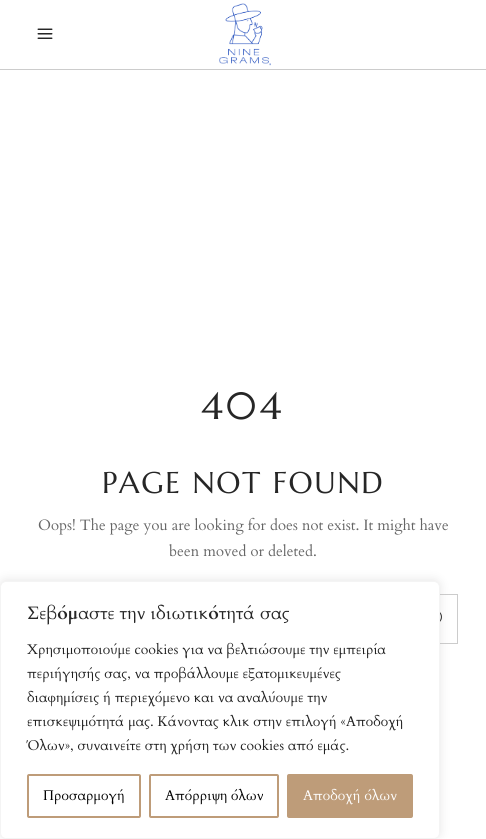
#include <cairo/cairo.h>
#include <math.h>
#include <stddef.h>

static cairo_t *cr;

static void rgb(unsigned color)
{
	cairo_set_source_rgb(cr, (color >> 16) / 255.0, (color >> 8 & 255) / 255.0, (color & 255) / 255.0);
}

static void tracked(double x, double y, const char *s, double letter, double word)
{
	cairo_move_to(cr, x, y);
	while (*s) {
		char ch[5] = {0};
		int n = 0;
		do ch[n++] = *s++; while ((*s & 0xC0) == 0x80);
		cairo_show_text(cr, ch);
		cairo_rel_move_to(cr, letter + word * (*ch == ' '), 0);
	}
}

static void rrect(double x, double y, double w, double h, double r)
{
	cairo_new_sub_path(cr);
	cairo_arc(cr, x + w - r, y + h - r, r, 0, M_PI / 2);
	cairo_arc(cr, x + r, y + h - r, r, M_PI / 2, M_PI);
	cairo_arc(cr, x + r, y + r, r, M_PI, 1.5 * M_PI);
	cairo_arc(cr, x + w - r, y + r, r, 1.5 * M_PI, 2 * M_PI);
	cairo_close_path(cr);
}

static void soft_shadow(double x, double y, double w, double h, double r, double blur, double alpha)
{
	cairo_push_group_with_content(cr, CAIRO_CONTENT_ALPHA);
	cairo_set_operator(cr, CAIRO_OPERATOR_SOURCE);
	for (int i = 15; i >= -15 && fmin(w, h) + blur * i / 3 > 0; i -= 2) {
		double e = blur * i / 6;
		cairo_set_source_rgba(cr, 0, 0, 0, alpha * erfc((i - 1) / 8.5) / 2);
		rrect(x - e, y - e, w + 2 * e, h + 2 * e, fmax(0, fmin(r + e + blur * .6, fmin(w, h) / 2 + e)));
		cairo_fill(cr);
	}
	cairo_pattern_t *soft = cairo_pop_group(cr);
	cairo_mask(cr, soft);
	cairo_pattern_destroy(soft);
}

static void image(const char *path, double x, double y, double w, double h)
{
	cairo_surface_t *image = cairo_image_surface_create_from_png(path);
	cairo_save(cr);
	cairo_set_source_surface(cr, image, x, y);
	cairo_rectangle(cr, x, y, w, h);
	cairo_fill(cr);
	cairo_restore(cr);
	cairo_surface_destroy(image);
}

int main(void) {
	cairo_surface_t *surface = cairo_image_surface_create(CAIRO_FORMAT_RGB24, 486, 839);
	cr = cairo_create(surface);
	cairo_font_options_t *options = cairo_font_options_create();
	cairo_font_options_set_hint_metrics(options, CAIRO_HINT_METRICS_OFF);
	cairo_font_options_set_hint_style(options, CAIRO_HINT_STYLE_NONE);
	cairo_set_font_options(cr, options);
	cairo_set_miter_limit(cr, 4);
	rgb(0xffffff);
	cairo_paint(cr);
	rgb(0xcccccc);
	cairo_rectangle(cr, 0, 69, 486, 1);
	cairo_fill(cr);
	image("img/1.png", 37, 28, 16, 11);
	image("img/2.png", 219, 3, 52, 63);
	image("img/3.png", 38, 517, 410, 18);
	image("img/4.png", 169, 544, 147, 13);
	cairo_rectangle(cr, 30.5, 594.5, 427, 49);
	cairo_set_line_width(cr, 1);
	cairo_stroke(cr);
	image("img/5.png", 440, 612, 2, 10);
	rgb(0xacabab);
	soft_shadow(0, 580, 440, 258, 6, 5, 0.3);
	rgb(0xffffff);
	rrect(0.5, 581.5, 439, 257, 5.5);
	cairo_fill_preserve(cr);
	rgb(0xf4f4f4);
	cairo_stroke(cr);
	image("img/6.png", 27, 642, 359, 17);
	image("img/7.png", 27, 666, 314, 17);
	image("img/8.png", 27, 690, 300, 17);
	image("img/9.png", 27, 714, 376, 17);
	image("img/10.png", 26, 738, 323, 17);
	rrect(28, 775, 112, 42, 1);
	rgb(0xbe9c79);
	cairo_set_line_width(cr, 2);
	cairo_stroke(cr);
	image("img/11.png", 43, 789, 81, 16);
	rrect(150, 775, 128, 42, 1);
	cairo_stroke(cr);
	image("img/12.png", 165, 788, 98, 17);
	rrect(288, 775, 124, 42, 1);
	cairo_fill_preserve(cr);
	cairo_stroke(cr);
	image("img/13.png", 303, 788, 94, 17);
	cairo_select_font_face(cr, "Marcellus", CAIRO_FONT_SLANT_NORMAL, CAIRO_FONT_WEIGHT_NORMAL);
	cairo_set_font_size(cr, 38);
	rgb(0x262626);
	tracked(201, 419, "404", 3, 0);
	cairo_set_font_size(cr, 30);
	tracked(102, 493, "PAGE NOT FOUND", 1.75, 0);
	cairo_select_font_face(cr, "Cardo", CAIRO_FONT_SLANT_NORMAL, CAIRO_FONT_WEIGHT_BOLD);
	cairo_set_font_size(cr, 18);
	cairo_move_to(cr, 27, 619);
	cairo_show_text(cr, "Σεβόμαστε την ιδιωτικότητά σας");
	cairo_surface_write_to_png(surface, "page.png");
	cairo_font_options_destroy(options);
	cairo_destroy(cr);
	cairo_surface_destroy(surface);
	return 0;
}
